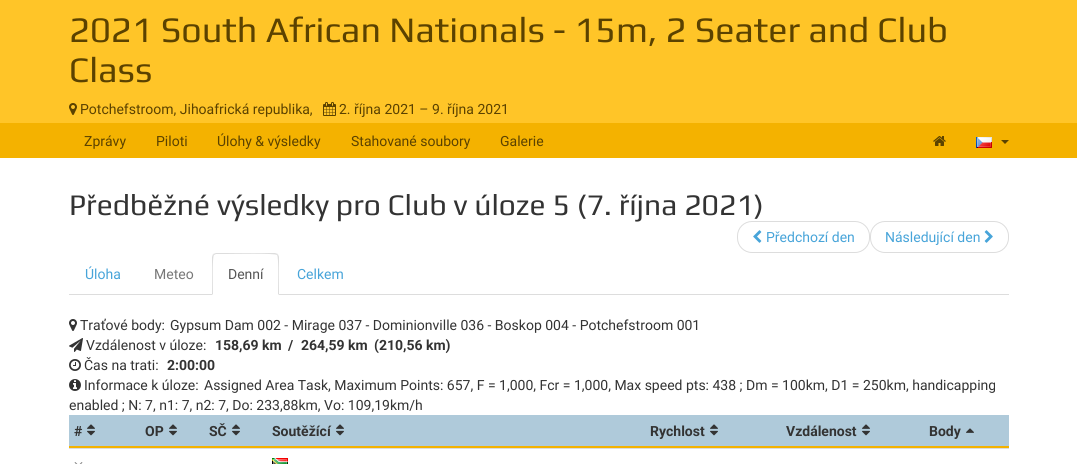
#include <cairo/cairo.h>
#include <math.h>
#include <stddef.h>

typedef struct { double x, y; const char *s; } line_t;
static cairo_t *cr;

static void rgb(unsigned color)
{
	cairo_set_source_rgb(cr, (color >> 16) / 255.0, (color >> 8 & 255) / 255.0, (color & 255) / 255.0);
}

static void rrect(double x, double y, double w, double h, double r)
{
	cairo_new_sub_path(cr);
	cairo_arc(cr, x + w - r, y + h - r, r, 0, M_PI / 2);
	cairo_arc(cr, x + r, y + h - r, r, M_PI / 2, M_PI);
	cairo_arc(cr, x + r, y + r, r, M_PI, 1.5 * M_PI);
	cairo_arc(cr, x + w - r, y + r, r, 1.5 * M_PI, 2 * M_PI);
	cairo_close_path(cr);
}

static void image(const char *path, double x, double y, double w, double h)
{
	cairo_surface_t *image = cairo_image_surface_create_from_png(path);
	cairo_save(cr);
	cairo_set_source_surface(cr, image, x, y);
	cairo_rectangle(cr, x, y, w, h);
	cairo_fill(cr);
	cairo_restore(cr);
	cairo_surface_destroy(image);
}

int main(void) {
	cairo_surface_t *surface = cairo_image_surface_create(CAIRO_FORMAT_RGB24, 1077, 464);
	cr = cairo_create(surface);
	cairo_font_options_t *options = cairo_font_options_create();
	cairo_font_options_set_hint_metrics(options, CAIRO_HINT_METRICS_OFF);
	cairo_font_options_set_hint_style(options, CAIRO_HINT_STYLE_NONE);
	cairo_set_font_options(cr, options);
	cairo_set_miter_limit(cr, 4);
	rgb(0xffffff);
	cairo_paint(cr);
	rgb(0xffc528);
	cairo_rectangle(cr, 0, 0, 1077, 123);
	cairo_fill(cr);
	image("img/1.png", 69, 103, 8, 12);
	image("img/2.png", 323, 102, 13, 14);
	rgb(0xf4b200);
	cairo_rectangle(cr, 0, 123, 1077, 35);
	cairo_fill(cr);
	image("img/3.png", 933, 136, 13, 10);
	image("img/4.png", 976, 137, 16, 11);
	rgb(0x5b4200);
	cairo_new_path(cr);
	cairo_move_to(cr, 1001, 140);
	cairo_line_to(cr, 1009, 140);
	cairo_line_to(cr, 1005, 144);
	cairo_close_path(cr);
	cairo_fill(cr);
	rrect(870.5, 221.5, 138, 31, 14.5);
	rgb(0xdddddd);
	cairo_set_line_width(cr, 1);
	cairo_stroke(cr);
	image("img/6.png", 984, 230, 9, 13);
	cairo_rectangle(cr, 69, 294, 940, 1);
	cairo_fill(cr);
	rgb(0xffffff);
	cairo_new_path(cr);
	cairo_move_to(cr, 216, 253);
	cairo_line_to(cr, 275, 253);
	cairo_curve_to(cr, 277, 253, 279, 255, 279, 257);
	cairo_line_to(cr, 279, 295);
	cairo_line_to(cr, 212, 295);
	cairo_line_to(cr, 212, 257);
	cairo_curve_to(cr, 212, 255, 214, 253, 216, 253);
	cairo_close_path(cr);
	cairo_fill(cr);
	rgb(0xdddddd);
	cairo_new_path(cr);
	cairo_move_to(cr, 216, 253);
	cairo_line_to(cr, 213, 254);
	cairo_line_to(cr, 214, 255);
	cairo_line_to(cr, 216, 254);
	cairo_line_to(cr, 226, 254);
	cairo_curve_to(cr, 232, 254, 275, 253, 277, 255);
	cairo_line_to(cr, 278, 254);
	cairo_line_to(cr, 275, 253);
	cairo_close_path(cr);
	cairo_fill(cr);
	cairo_new_path(cr);
	cairo_move_to(cr, 279, 295);
	cairo_line_to(cr, 279, 257);
	cairo_curve_to(cr, 279, 256, 278, 255, 278, 254);
	cairo_line_to(cr, 277, 255);
	cairo_curve_to(cr, 279, 257, 278, 289, 278, 294);
	cairo_close_path(cr);
	cairo_fill(cr);
	cairo_new_path(cr);
	cairo_move_to(cr, 212, 295);
	cairo_line_to(cr, 213, 294);
	cairo_curve_to(cr, 213, 289, 212, 257, 214, 255);
	cairo_line_to(cr, 213, 254);
	cairo_line_to(cr, 212, 257);
	cairo_close_path(cr);
	cairo_fill(cr);
	image("img/7.png", 69, 319, 8, 12);
	image("img/8.png", 69, 338, 14, 14);
	image("img/9.png", 69, 359, 12, 12);
	image("img/10.png", 69, 379, 12, 12);
	rgb(0xafcada);
	cairo_rectangle(cr, 69, 415, 940, 31);
	cairo_fill(cr);
	rgb(0xf4b200);
	cairo_rectangle(cr, 69, 446, 940, 2);
	cairo_fill(cr);
	image("img/11.png", 87, 424, 8, 12);
	image("img/11.png", 169, 424, 8, 12);
	image("img/11.png", 232, 424, 8, 12);
	image("img/11.png", 336, 424, 8, 12);
	image("img/11.png", 710, 424, 8, 12);
	image("img/11.png", 862, 424, 8, 12);
	image("img/12.png", 966, 428, 8, 5);
	rgb(0xdddddd);
	cairo_rectangle(cr, 69, 448, 940, 1);
	cairo_fill(cr);
	image("img/13.png", 74, 462, 9, 2);
	image("img/14.png", 272, 458, 16, 6);
	cairo_select_font_face(cr, "Play", CAIRO_FONT_SLANT_NORMAL, CAIRO_FONT_WEIGHT_NORMAL);
	cairo_set_font_size(cr, 36);
	rgb(0x5b4200);
	cairo_move_to(cr, 69, 42);
	cairo_show_text(cr, "2021 South African Nationals - 15m, 2 Seater and Club");
	cairo_move_to(cr, 69, 82);
	cairo_show_text(cr, "Class");
	cairo_select_font_face(cr, "Roboto", CAIRO_FONT_SLANT_NORMAL, CAIRO_FONT_WEIGHT_NORMAL);
	cairo_set_font_size(cr, 14);
	{
		static const line_t items[] = {
			{80, 114, "Potchefstroom, Jihoafrická republika,"},
			{339, 114, "2. října 2021 – 9. října 2021"},
			{84, 146, "Zprávy"},
			{156, 146, "Piloti"},
			{217, 146, "Úlohy & výsledky"},
			{351, 146, "Stahované soubory"},
			{500, 146, "Galerie"},
		};
		for (size_t i = 0; i < sizeof items / sizeof *items; i++) {
			cairo_move_to(cr, items[i].x, items[i].y);
			cairo_show_text(cr, items[i].s);
		}
	}
	cairo_select_font_face(cr, "Play", CAIRO_FONT_SLANT_NORMAL, CAIRO_FONT_WEIGHT_NORMAL);
	cairo_set_font_size(cr, 30);
	rgb(0x333333);
	cairo_move_to(cr, 69, 215);
	cairo_show_text(cr, "Předběžné výsledky pro Club v úloze 5 (7. října 2021)");
	rrect(737.5, 221.5, 132, 31, 14.5);
	rgb(0xdddddd);
	cairo_stroke(cr);
	image("img/5.png", 753, 230, 9, 13);
	cairo_select_font_face(cr, "Roboto", CAIRO_FONT_SLANT_NORMAL, CAIRO_FONT_WEIGHT_NORMAL);
	cairo_set_font_size(cr, 14);
	rgb(0x47a4d9);
	{
		static const line_t items[] = {
			{766, 242, "Předchozí den"},
			{885, 242, "Následující den"},
			{85, 279, "Úloha"},
		};
		for (size_t i = 0; i < sizeof items / sizeof *items; i++) {
			cairo_move_to(cr, items[i].x, items[i].y);
			cairo_show_text(cr, items[i].s);
		}
	}
	rgb(0x777777);
	cairo_move_to(cr, 154, 279);
	cairo_show_text(cr, "Meteo");
	rgb(0x555555);
	cairo_move_to(cr, 228, 279);
	cairo_show_text(cr, "Denní");
	rgb(0x47a4d9);
	cairo_move_to(cr, 297, 279);
	cairo_show_text(cr, "Celkem");
	rgb(0x333333);
	{
		static const line_t items[] = {
			{80, 330, "Traťové body:"},
			{170, 330, "Gypsum Dam 002 - Mirage 037 - Dominionville 036 - Boskop 004 - Potchefstroom 001"},
			{86, 350, "Vzdálenost v úloze:"},
		};
		for (size_t i = 0; i < sizeof items / sizeof *items; i++) {
			cairo_move_to(cr, items[i].x, items[i].y);
			cairo_show_text(cr, items[i].s);
		}
	}
	cairo_select_font_face(cr, "Roboto", CAIRO_FONT_SLANT_NORMAL, CAIRO_FONT_WEIGHT_BOLD);
	{
		static const line_t items[] = {
			{215, 350, "158,69 km"},
			{288, 350, "/"},
			{301, 350, "264,59 km"},
			{374, 350, "(210,56 km)"},
		};
		for (size_t i = 0; i < sizeof items / sizeof *items; i++) {
			cairo_move_to(cr, items[i].x, items[i].y);
			cairo_show_text(cr, items[i].s);
		}
	}
	cairo_select_font_face(cr, "Roboto", CAIRO_FONT_SLANT_NORMAL, CAIRO_FONT_WEIGHT_NORMAL);
	cairo_move_to(cr, 84, 370);
	cairo_show_text(cr, "Čas na trati:");
	cairo_select_font_face(cr, "Roboto", CAIRO_FONT_SLANT_NORMAL, CAIRO_FONT_WEIGHT_BOLD);
	cairo_move_to(cr, 167, 370);
	cairo_show_text(cr, "2:00:00");
	cairo_select_font_face(cr, "Roboto", CAIRO_FONT_SLANT_NORMAL, CAIRO_FONT_WEIGHT_NORMAL);
	{
		static const line_t items[] = {
			{84, 390, "Informace k úloze:"},
			{204, 390, "Assigned Area Task, Maximum Points: 657, F = 1,000, Fcr = 1,000, Max speed pts: 438 ; Dm = 100km, D1 = 250km, handicapping"},
			{69, 410, "enabled ; N: 7, n1: 7, n2: 7, Do: 233,88km, Vo: 109,19km/h"},
		};
		for (size_t i = 0; i < sizeof items / sizeof *items; i++) {
			cairo_move_to(cr, items[i].x, items[i].y);
			cairo_show_text(cr, items[i].s);
		}
	}
	cairo_select_font_face(cr, "Roboto", CAIRO_FONT_SLANT_NORMAL, CAIRO_FONT_WEIGHT_BOLD);
	{
		static const line_t items[] = {
			{74, 436, "#"},
			{145, 436, "OP"},
			{209, 436, "SČ"},
			{272, 436, "Soutěžící"},
			{650, 436, "Rychlost"},
			{786, 436, "Vzdálenost"},
			{929, 436, "Body"},
		};
		for (size_t i = 0; i < sizeof items / sizeof *items; i++) {
			cairo_move_to(cr, items[i].x, items[i].y);
			cairo_show_text(cr, items[i].s);
		}
	}
	cairo_surface_write_to_png(surface, "page.png");
	cairo_font_options_destroy(options);
	cairo_destroy(cr);
	cairo_surface_destroy(surface);
	return 0;
}
